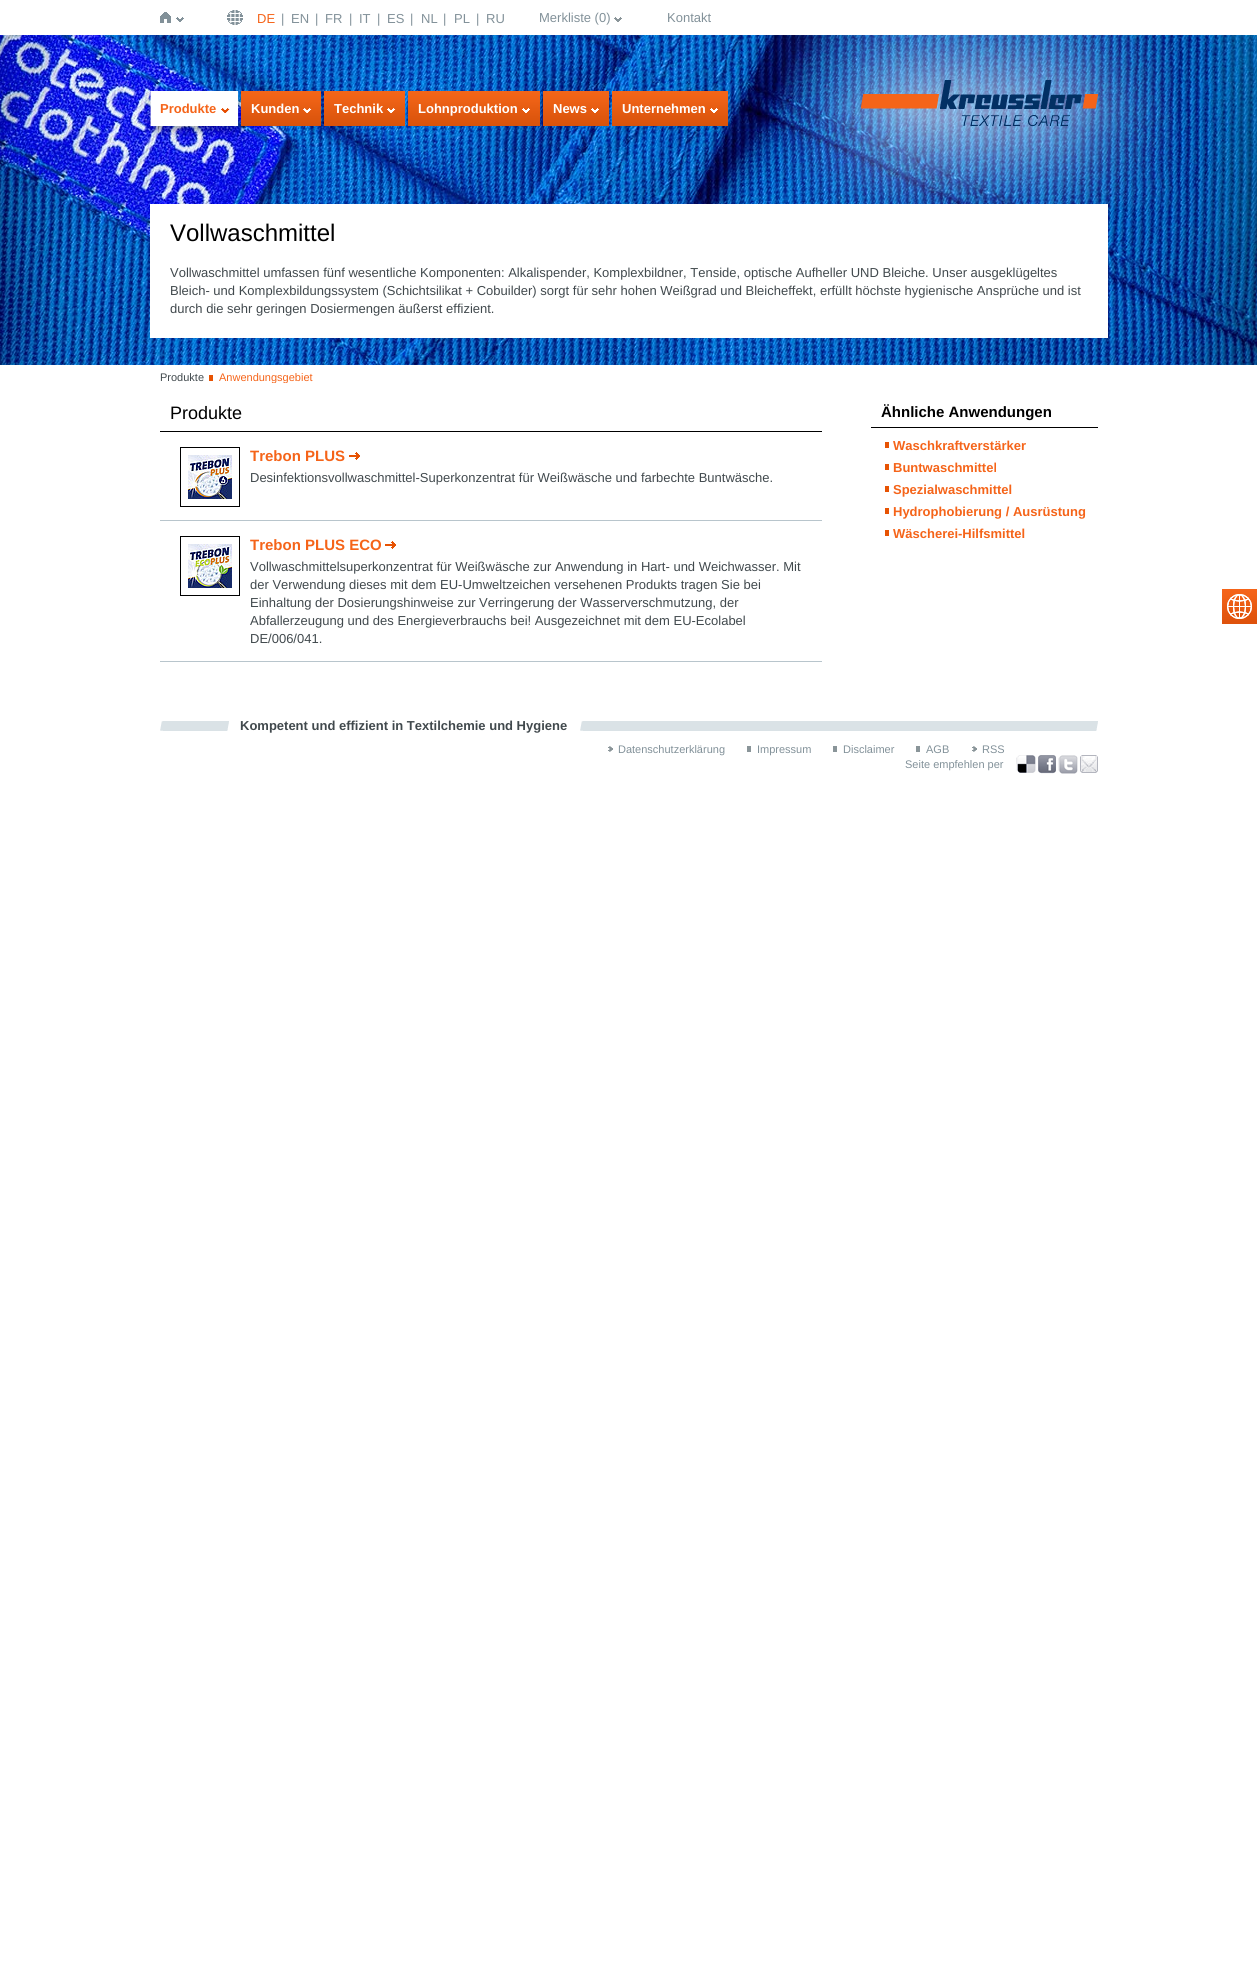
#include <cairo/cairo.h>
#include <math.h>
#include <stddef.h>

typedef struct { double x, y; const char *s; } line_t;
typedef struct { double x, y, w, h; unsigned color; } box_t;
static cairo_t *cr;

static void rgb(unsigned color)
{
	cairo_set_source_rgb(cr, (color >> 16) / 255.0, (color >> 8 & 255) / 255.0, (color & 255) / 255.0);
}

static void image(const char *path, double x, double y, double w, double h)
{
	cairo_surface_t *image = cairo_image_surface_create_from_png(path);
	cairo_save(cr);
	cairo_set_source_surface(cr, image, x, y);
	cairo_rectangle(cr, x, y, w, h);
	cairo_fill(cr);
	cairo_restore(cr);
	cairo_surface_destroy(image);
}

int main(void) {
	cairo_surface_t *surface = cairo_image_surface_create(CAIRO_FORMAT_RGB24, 1257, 1962);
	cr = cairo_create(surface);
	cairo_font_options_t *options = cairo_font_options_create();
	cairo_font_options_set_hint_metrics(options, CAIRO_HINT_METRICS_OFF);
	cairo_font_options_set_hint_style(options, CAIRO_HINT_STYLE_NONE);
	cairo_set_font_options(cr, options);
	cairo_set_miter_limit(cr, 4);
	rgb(0xffffff);
	cairo_paint(cr);
	image("img/1.png", 160, 12, 24, 11);
	image("img/2.png", 227, 10, 16, 15);
	image("img/3.png", 614, 17, 8, 5);
	image("img/13.png", 0, 35, 1257, 330);
	image("img/4.png", 144, 90, 15, 47);
	image("img/5.png", 158, 90, 86, 47);
	image("img/6.png", 241, 91, 80, 35);
	image("img/7.png", 324, 91, 81, 35);
	image("img/8.png", 408, 91, 132, 35);
	image("img/9.png", 543, 91, 66, 35);
	image("img/10.png", 612, 91, 116, 35);
	image("img/12.png", 780, 35, 395, 173);
	image("img/11.png", 861, 80, 237, 46);
	{
		static const box_t items[] = {
			{150, 204, 958, 134, 0xffffff},
			{209, 375, 4, 6, 0xe75303},
			{160, 431, 662, 1, 0x000000},
			{160, 520, 662, 1, 0xb8c5cc},
		};
		for (size_t i = 0; i < sizeof items / sizeof *items; i++) {
			rgb(items[i].color);
			cairo_rectangle(cr, items[i].x, items[i].y, items[i].w, items[i].h);
			cairo_fill(cr);
		}
	}
	cairo_rectangle(cr, 180.5, 447.5, 59, 59);
	rgb(0x000000);
	cairo_set_line_width(cr, 1);
	cairo_stroke(cr);
	image("img/14.png", 188, 455, 44, 44);
	image("img/15.png", 349, 452, 11, 8);
	rgb(0xb8c5cc);
	cairo_rectangle(cr, 160, 661, 662, 1);
	cairo_fill(cr);
	cairo_rectangle(cr, 180.5, 536.5, 59, 59);
	rgb(0x000000);
	cairo_stroke(cr);
	image("img/16.png", 188, 544, 44, 44);
	image("img/15.png", 385, 541, 11, 8);
	{
		static const box_t items[] = {
			{871, 427, 227, 1, 0x000000},
			{885, 442, 4, 6, 0xe75303},
			{885, 464, 4, 6, 0xe75303},
			{885, 486, 4, 6, 0xe75303},
			{885, 508, 4, 6, 0xe75303},
			{885, 530, 4, 6, 0xe75303},
		};
		for (size_t i = 0; i < sizeof items / sizeof *items; i++) {
			rgb(items[i].color);
			cairo_rectangle(cr, items[i].x, items[i].y, items[i].w, items[i].h);
			cairo_fill(cr);
		}
	}
	image("img/17.png", 160, 721, 938, 10);
	image("img/18.png", 580, 721, 192, 10);
	image("img/19.png", 608, 746, 5, 6);
	{
		static const box_t items[] = {
			{747, 746, 4, 6, 0x8a9599},
			{833, 746, 4, 6, 0x8a9599},
			{916, 746, 4, 6, 0x8a9599},
		};
		for (size_t i = 0; i < sizeof items / sizeof *items; i++) {
			rgb(items[i].color);
			cairo_rectangle(cr, items[i].x, items[i].y, items[i].w, items[i].h);
			cairo_fill(cr);
		}
	}
	image("img/19.png", 972, 746, 5, 6);
	image("img/20.png", 1016, 755, 20, 18);
	image("img/21.png", 1038, 755, 18, 19);
	image("img/22.png", 1058, 755, 20, 19);
	image("img/23.png", 1080, 755, 18, 18);
	image("img/24.png", 1222, 589, 35, 35);
	cairo_select_font_face(cr, "Liberation Sans", CAIRO_FONT_SLANT_NORMAL, CAIRO_FONT_WEIGHT_NORMAL);
	cairo_set_font_size(cr, 13);
	rgb(0xf56419);
	cairo_move_to(cr, 257, 23);
	cairo_show_text(cr, "DE");
	rgb(0x829199);
	{
		static const line_t items[] = {
			{281, 23, "|"},
			{291, 23, "EN"},
			{315, 23, "|"},
			{325, 23, "FR"},
			{349, 23, "|"},
			{359, 23, "IT"},
			{377, 23, "|"},
			{387, 23, "ES"},
			{410, 23, "|"},
			{421, 23, "NL"},
			{443, 23, "|"},
			{454, 23, "PL"},
			{476, 23, "|"},
			{486, 23, "RU"},
			{539, 22, "Merkliste (0)"},
			{667, 22, "Kontakt"},
		};
		for (size_t i = 0; i < sizeof items / sizeof *items; i++) {
			cairo_move_to(cr, items[i].x, items[i].y);
			cairo_show_text(cr, items[i].s);
		}
	}
	cairo_select_font_face(cr, "Liberation Sans", CAIRO_FONT_SLANT_NORMAL, CAIRO_FONT_WEIGHT_BOLD);
	rgb(0xf56419);
	cairo_move_to(cr, 160, 113);
	cairo_show_text(cr, "Produkte");
	rgb(0xffffff);
	{
		static const line_t items[] = {
			{251, 113, "Kunden"},
			{334, 113, "Technik"},
			{418, 113, "Lohnproduktion"},
			{553, 113, "News"},
			{622, 113, "Unternehmen"},
		};
		for (size_t i = 0; i < sizeof items / sizeof *items; i++) {
			cairo_move_to(cr, items[i].x, items[i].y);
			cairo_show_text(cr, items[i].s);
		}
	}
	cairo_select_font_face(cr, "Liberation Sans", CAIRO_FONT_SLANT_NORMAL, CAIRO_FONT_WEIGHT_NORMAL);
	cairo_set_font_size(cr, 24);
	rgb(0x000000);
	cairo_move_to(cr, 170, 241);
	cairo_show_text(cr, "Vollwaschmittel");
	cairo_set_font_size(cr, 13);
	rgb(0x41494d);
	{
		static const line_t items[] = {
			{170, 277, "Vollwaschmittel umfassen fünf wesentliche Komponenten: Alkalispender, Komplexbildner, Tenside, optische Aufheller UND Bleiche. Unser ausgeklügeltes"},
			{170, 295, "Bleich- und Komplexbildungssystem (Schichtsilikat + Cobuilder) sorgt für sehr hohen Weißgrad und Bleicheffekt, erfüllt höchste hygienische Ansprüche und ist"},
			{170, 313, "durch die sehr geringen Dosiermengen äußerst effizient."},
		};
		for (size_t i = 0; i < sizeof items / sizeof *items; i++) {
			cairo_move_to(cr, items[i].x, items[i].y);
			cairo_show_text(cr, items[i].s);
		}
	}
	cairo_set_font_size(cr, 11);
	cairo_move_to(cr, 160, 381);
	cairo_show_text(cr, "Produkte");
	cairo_save(cr);
	cairo_rectangle(cr, 160, 371, 948, 12);
	cairo_clip(cr);
	rgb(0xf56419);
	cairo_move_to(cr, 219, 381);
	cairo_show_text(cr, "Anwendungsgebiet");
	cairo_restore(cr);
	cairo_set_font_size(cr, 18);
	rgb(0x000000);
	cairo_move_to(cr, 170, 419);
	cairo_show_text(cr, "Produkte");
	cairo_select_font_face(cr, "Liberation Sans", CAIRO_FONT_SLANT_NORMAL, CAIRO_FONT_WEIGHT_BOLD);
	cairo_set_font_size(cr, 15);
	rgb(0xf56419);
	cairo_move_to(cr, 250, 461);
	cairo_show_text(cr, "Trebon PLUS");
	cairo_select_font_face(cr, "Liberation Sans", CAIRO_FONT_SLANT_NORMAL, CAIRO_FONT_WEIGHT_NORMAL);
	cairo_set_font_size(cr, 13);
	rgb(0x41494d);
	cairo_move_to(cr, 250, 482);
	cairo_show_text(cr, "Desinfektionsvollwaschmittel-Superkonzentrat für Weißwäsche und farbechte Buntwäsche.");
	cairo_select_font_face(cr, "Liberation Sans", CAIRO_FONT_SLANT_NORMAL, CAIRO_FONT_WEIGHT_BOLD);
	cairo_set_font_size(cr, 15);
	rgb(0xf56419);
	cairo_move_to(cr, 250, 550);
	cairo_show_text(cr, "Trebon PLUS ECO");
	cairo_select_font_face(cr, "Liberation Sans", CAIRO_FONT_SLANT_NORMAL, CAIRO_FONT_WEIGHT_NORMAL);
	cairo_set_font_size(cr, 13);
	rgb(0x41494d);
	{
		static const line_t items[] = {
			{250, 571, "Vollwaschmittelsuperkonzentrat für Weißwäsche zur Anwendung in Hart- und Weichwasser. Mit"},
			{250, 589, "der Verwendung dieses mit dem EU-Umweltzeichen versehenen Produkts tragen Sie bei"},
			{250, 607, "Einhaltung der Dosierungshinweise zur Verringerung der Wasserverschmutzung, der"},
			{250, 625, "Abfallerzeugung und des Energieverbrauchs bei! Ausgezeichnet mit dem EU-Ecolabel"},
			{250, 643, "DE/006/041."},
		};
		for (size_t i = 0; i < sizeof items / sizeof *items; i++) {
			cairo_move_to(cr, items[i].x, items[i].y);
			cairo_show_text(cr, items[i].s);
		}
	}
	cairo_select_font_face(cr, "Liberation Sans", CAIRO_FONT_SLANT_NORMAL, CAIRO_FONT_WEIGHT_BOLD);
	cairo_set_font_size(cr, 15);
	rgb(0x000000);
	cairo_move_to(cr, 881, 417);
	cairo_show_text(cr, "Ähnliche Anwendungen");
	cairo_set_font_size(cr, 13);
	rgb(0xf56419);
	{
		static const line_t items[] = {
			{893, 450, "Waschkraftverstärker"},
			{893, 472, "Buntwaschmittel"},
			{893, 494, "Spezialwaschmittel"},
			{893, 516, "Hydrophobierung / Ausrüstung"},
			{893, 538, "Wäscherei-Hilfsmittel"},
		};
		for (size_t i = 0; i < sizeof items / sizeof *items; i++) {
			cairo_move_to(cr, items[i].x, items[i].y);
			cairo_show_text(cr, items[i].s);
		}
	}
	rgb(0x41494d);
	cairo_move_to(cr, 240, 730);
	cairo_show_text(cr, "Kompetent und effizient in Textilchemie und Hygiene");
	cairo_select_font_face(cr, "Liberation Sans", CAIRO_FONT_SLANT_NORMAL, CAIRO_FONT_WEIGHT_NORMAL);
	cairo_set_font_size(cr, 11);
	rgb(0x829199);
	{
		static const line_t items[] = {
			{618, 753, "Datenschutzerklärung"},
			{757, 753, "Impressum"},
			{843, 753, "Disclaimer"},
			{926, 753, "AGB"},
			{982, 753, "RSS"},
			{905, 768, "Seite empfehlen per"},
		};
		for (size_t i = 0; i < sizeof items / sizeof *items; i++) {
			cairo_move_to(cr, items[i].x, items[i].y);
			cairo_show_text(cr, items[i].s);
		}
	}
	cairo_surface_write_to_png(surface, "page.png");
	cairo_font_options_destroy(options);
	cairo_destroy(cr);
	cairo_surface_destroy(surface);
	return 0;
}
